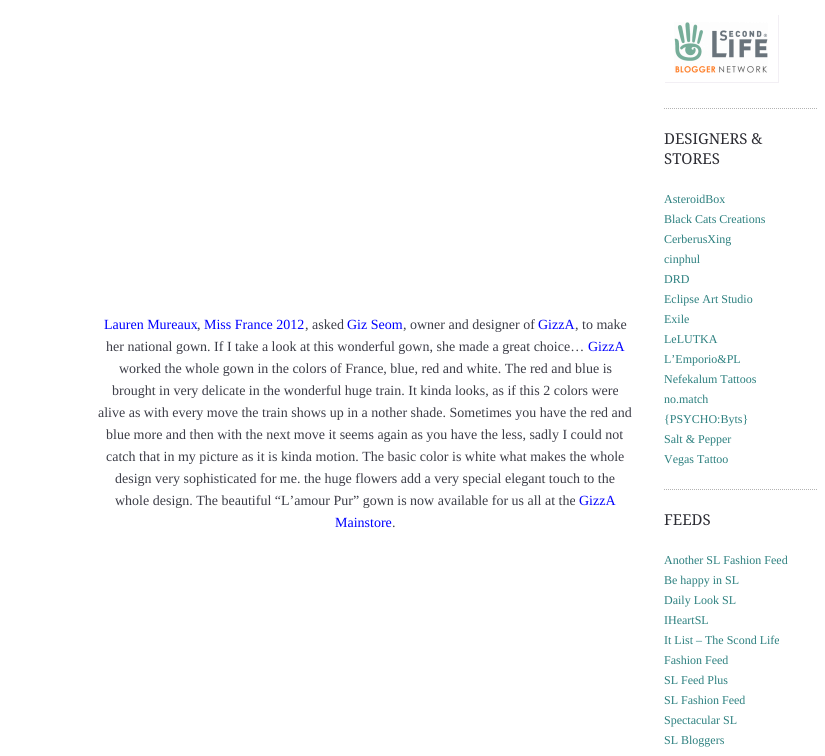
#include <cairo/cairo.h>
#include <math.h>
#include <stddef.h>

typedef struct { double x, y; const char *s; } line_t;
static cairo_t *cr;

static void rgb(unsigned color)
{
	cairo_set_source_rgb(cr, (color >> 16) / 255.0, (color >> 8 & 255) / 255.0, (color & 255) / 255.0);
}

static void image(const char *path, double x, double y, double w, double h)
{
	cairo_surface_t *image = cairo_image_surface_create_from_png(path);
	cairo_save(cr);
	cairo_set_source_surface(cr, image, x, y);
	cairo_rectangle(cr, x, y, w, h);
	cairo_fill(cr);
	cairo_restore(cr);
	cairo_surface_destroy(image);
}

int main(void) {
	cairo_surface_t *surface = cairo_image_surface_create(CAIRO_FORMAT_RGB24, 825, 756);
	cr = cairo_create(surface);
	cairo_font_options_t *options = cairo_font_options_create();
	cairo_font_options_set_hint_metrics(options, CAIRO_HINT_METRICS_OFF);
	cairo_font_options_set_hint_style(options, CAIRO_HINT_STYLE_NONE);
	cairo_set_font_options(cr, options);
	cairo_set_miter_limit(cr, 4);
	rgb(0xffffff);
	cairo_paint(cr);
	rgb(0xf2eff4);
	cairo_new_path(cr);
	cairo_move_to(cr, 665, 82);
	cairo_line_to(cr, 665, 83);
	cairo_line_to(cr, 779, 83);
	cairo_line_to(cr, 779, 15);
	cairo_line_to(cr, 778, 15);
	cairo_line_to(cr, 778, 82);
	cairo_close_path(cr);
	cairo_fill(cr);
	image("img/1.png", 674, 22, 94, 51);
	cairo_new_path(cr);
	cairo_move_to(cr, 664, 108.5);
	cairo_line_to(cr, 817, 108.5);
	rgb(0xb3b3b3);
	cairo_set_line_width(cr, 1);
	cairo_set_dash(cr, (double[]){1, 1}, 2, 0);
	cairo_stroke(cr);
	cairo_new_path(cr);
	cairo_move_to(cr, 664, 489.5);
	cairo_line_to(cr, 817, 489.5);
	cairo_stroke(cr);
	cairo_select_font_face(cr, "Liberation Serif", CAIRO_FONT_SLANT_NORMAL, CAIRO_FONT_WEIGHT_NORMAL);
	cairo_set_font_size(cr, 14);
	rgb(0x0000ff);
	cairo_move_to(cr, 104, 329);
	cairo_show_text(cr, "Lauren Mureaux");
	rgb(0x3c3d47);
	cairo_move_to(cr, 197, 329);
	cairo_show_text(cr, ",");
	rgb(0x0000ff);
	cairo_move_to(cr, 204, 329);
	cairo_show_text(cr, "Miss France 2012");
	rgb(0x3c3d47);
	cairo_move_to(cr, 305, 329);
	cairo_show_text(cr, ", asked");
	rgb(0x0000ff);
	cairo_move_to(cr, 347, 329);
	cairo_show_text(cr, "Giz Seom");
	rgb(0x3c3d47);
	cairo_move_to(cr, 403, 329);
	cairo_show_text(cr, ", owner and designer of");
	rgb(0x0000ff);
	cairo_move_to(cr, 538, 329);
	cairo_show_text(cr, "GizzA");
	rgb(0x3c3d47);
	cairo_move_to(cr, 575, 329);
	cairo_show_text(cr, ", to make");
	cairo_move_to(cr, 106, 351);
	cairo_show_text(cr, "her national gown. If I take a look at this wonderful gown, she made a great choice…");
	rgb(0x0000ff);
	cairo_move_to(cr, 588, 351);
	cairo_show_text(cr, "GizzA");
	rgb(0x3c3d47);
	{
		static const line_t items[] = {
			{119, 373, "worked the whole gown in the colors of France, blue, red and white. The red and blue is"},
			{112, 395, "brought in very delicate in the wonderful huge train. It kinda looks, as if this 2 colors were"},
			{98, 417, "alive as with every move the train shows up in a nother shade. Sometimes you have the red and"},
			{106, 439, "blue more and then with the next move it seems again as you have the less, sadly I could not"},
			{106, 461, "catch that in my picture as it is kinda motion. The basic color is white what makes the whole"},
			{115, 483, "design very sophisticated for me. the huge flowers add a very special elegant touch to the"},
			{115, 505, "whole design. The beautiful “L’amour Pur” gown is now available for us all at the"},
		};
		for (size_t i = 0; i < sizeof items / sizeof *items; i++) {
			cairo_move_to(cr, items[i].x, items[i].y);
			cairo_show_text(cr, items[i].s);
		}
	}
	rgb(0x0000ff);
	cairo_move_to(cr, 579, 505);
	cairo_show_text(cr, "GizzA");
	cairo_move_to(cr, 335, 527);
	cairo_show_text(cr, "Mainstore");
	rgb(0x3c3d47);
	cairo_move_to(cr, 392, 527);
	cairo_show_text(cr, ".");
	cairo_select_font_face(cr, "Droid Serif", CAIRO_FONT_SLANT_NORMAL, CAIRO_FONT_WEIGHT_NORMAL);
	cairo_set_font_size(cr, 15);
	rgb(0x2c2c33);
	cairo_move_to(cr, 664, 144);
	cairo_show_text(cr, "DESIGNERS &");
	cairo_move_to(cr, 664, 164);
	cairo_show_text(cr, "STORES");
	cairo_select_font_face(cr, "Liberation Serif", CAIRO_FONT_SLANT_NORMAL, CAIRO_FONT_WEIGHT_NORMAL);
	cairo_set_font_size(cr, 12);
	rgb(0x2c807f);
	{
		static const line_t items[] = {
			{664, 203, "AsteroidBox"},
			{664, 223, "Black Cats Creations"},
			{664, 243, "CerberusXing"},
			{664, 263, "cinphul"},
			{664, 283, "DRD"},
			{664, 303, "Eclipse Art Studio"},
			{664, 323, "Exile"},
			{664, 343, "LeLUTKA"},
			{664, 363, "L’Emporio&PL"},
			{664, 383, "Nefekalum Tattoos"},
			{664, 403, "no.match"},
			{664, 423, "{PSYCHO:Byts}"},
			{664, 443, "Salt & Pepper"},
			{664, 463, "Vegas Tattoo"},
		};
		for (size_t i = 0; i < sizeof items / sizeof *items; i++) {
			cairo_move_to(cr, items[i].x, items[i].y);
			cairo_show_text(cr, items[i].s);
		}
	}
	cairo_select_font_face(cr, "Droid Serif", CAIRO_FONT_SLANT_NORMAL, CAIRO_FONT_WEIGHT_NORMAL);
	cairo_set_font_size(cr, 15);
	rgb(0x2c2c33);
	cairo_move_to(cr, 664, 525);
	cairo_show_text(cr, "FEEDS");
	cairo_select_font_face(cr, "Liberation Serif", CAIRO_FONT_SLANT_NORMAL, CAIRO_FONT_WEIGHT_NORMAL);
	cairo_set_font_size(cr, 12);
	rgb(0x2c807f);
	{
		static const line_t items[] = {
			{664, 564, "Another SL Fashion Feed"},
			{664, 584, "Be happy in SL"},
			{664, 604, "Daily Look SL"},
			{664, 624, "IHeartSL"},
			{664, 644, "It List – The Scond Life"},
			{664, 664, "Fashion Feed"},
			{664, 684, "SL Feed Plus"},
			{664, 704, "SL Fashion Feed"},
			{664, 724, "Spectacular SL"},
			{664, 744, "SL Bloggers"},
		};
		for (size_t i = 0; i < sizeof items / sizeof *items; i++) {
			cairo_move_to(cr, items[i].x, items[i].y);
			cairo_show_text(cr, items[i].s);
		}
	}
	cairo_surface_write_to_png(surface, "page.png");
	cairo_font_options_destroy(options);
	cairo_destroy(cr);
	cairo_surface_destroy(surface);
	return 0;
}
